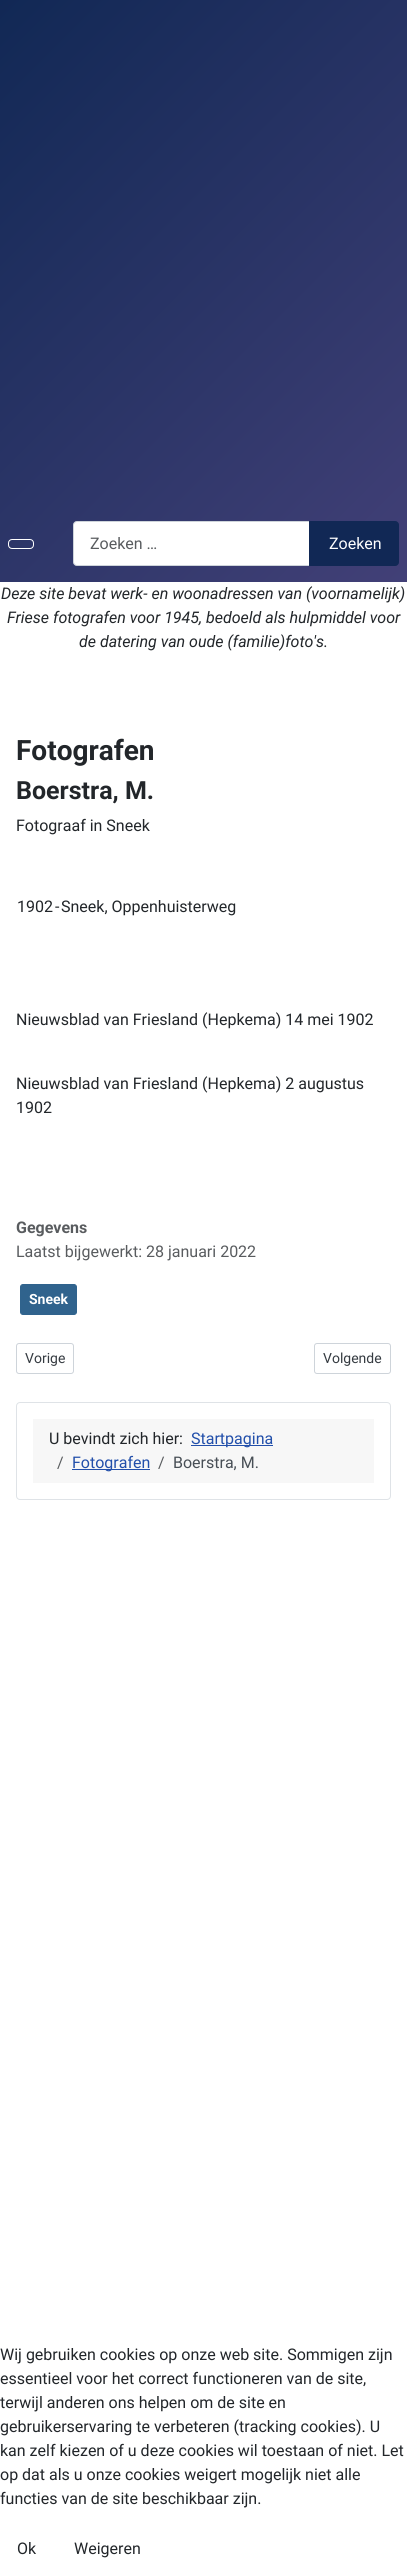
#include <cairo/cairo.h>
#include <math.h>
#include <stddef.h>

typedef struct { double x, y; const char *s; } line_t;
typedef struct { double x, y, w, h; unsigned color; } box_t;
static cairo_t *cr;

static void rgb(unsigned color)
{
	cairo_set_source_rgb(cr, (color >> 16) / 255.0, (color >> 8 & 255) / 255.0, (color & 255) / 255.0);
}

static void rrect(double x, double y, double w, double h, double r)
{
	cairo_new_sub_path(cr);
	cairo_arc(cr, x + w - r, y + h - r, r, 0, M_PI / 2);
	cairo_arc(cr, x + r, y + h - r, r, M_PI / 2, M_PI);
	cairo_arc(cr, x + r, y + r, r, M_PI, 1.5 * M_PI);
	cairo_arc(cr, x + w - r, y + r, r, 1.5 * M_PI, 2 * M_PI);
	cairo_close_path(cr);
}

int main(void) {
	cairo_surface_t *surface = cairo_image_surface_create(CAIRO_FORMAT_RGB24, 407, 2576);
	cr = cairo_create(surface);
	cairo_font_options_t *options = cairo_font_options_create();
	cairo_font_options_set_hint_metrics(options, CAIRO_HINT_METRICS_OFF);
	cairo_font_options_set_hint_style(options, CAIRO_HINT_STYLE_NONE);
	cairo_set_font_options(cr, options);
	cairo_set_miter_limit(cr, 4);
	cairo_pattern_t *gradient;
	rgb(0xffffff);
	cairo_paint(cr);
	gradient = cairo_pattern_create_linear(-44, 44, 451, 538);
	cairo_pattern_add_color_stop_rgba(gradient, 0, 0.067, 0.157, 0.333, 1);
	cairo_pattern_add_color_stop_rgba(gradient, 1, 0.259, 0.251, 0.467, 1);
	cairo_set_source(cr, gradient);
	cairo_pattern_destroy(gradient);
	cairo_rectangle(cr, 0, 0, 407, 582);
	cairo_fill(cr);
	rrect(8.5, 539.5, 25, 9, 3.5);
	rgb(0xffffff);
	cairo_set_line_width(cr, 1);
	cairo_stroke(cr);
	cairo_new_path(cr);
	cairo_move_to(cr, 77, 521.5);
	cairo_line_to(cr, 309.5, 521.5);
	cairo_line_to(cr, 309.5, 565.5);
	cairo_line_to(cr, 77, 565.5);
	cairo_curve_to(cr, 75, 565.5, 73.5, 564, 73.5, 562);
	cairo_line_to(cr, 73.5, 525);
	cairo_curve_to(cr, 73.5, 523, 75, 521.5, 77, 521.5);
	cairo_close_path(cr);
	cairo_fill_preserve(cr);
	rgb(0xced4da);
	cairo_stroke(cr);
	rgb(0x112855);
	cairo_new_path(cr);
	cairo_move_to(cr, 309.5, 521.5);
	cairo_line_to(cr, 395, 521.5);
	cairo_curve_to(cr, 397, 521.5, 398.5, 523, 398.5, 525);
	cairo_line_to(cr, 398.5, 562);
	cairo_curve_to(cr, 398.5, 564, 397, 565.5, 395, 565.5);
	cairo_line_to(cr, 309.5, 565.5);
	cairo_close_path(cr);
	cairo_fill_preserve(cr);
	cairo_stroke(cr);
	rgb(0x30638d);
	rrect(20.5, 1284.5, 56, 30, 2.5);
	cairo_fill_preserve(cr);
	cairo_stroke(cr);
	rrect(16.5, 1343.5, 57, 30, 2.5);
	rgb(0xced4da);
	cairo_stroke(cr);
	rrect(314.5, 1343.5, 76, 30, 2.5);
	cairo_stroke(cr);
	rrect(16.5, 1402.5, 374, 97, 3.5);
	rgb(0xdfe3e7);
	cairo_stroke(cr);
	{
		static const box_t items[] = {
			{33, 1419, 341, 64, 0xf7f7f7},
			{191, 1445, 82, 1, 0x224faa},
			{72, 1469, 78, 1, 0x224faa},
		};
		for (size_t i = 0; i < sizeof items / sizeof *items; i++) {
			rgb(items[i].color);
			cairo_rectangle(cr, items[i].x, items[i].y, items[i].w, items[i].h);
			cairo_fill(cr);
		}
	}
	cairo_select_font_face(cr, "Roboto", CAIRO_FONT_SLANT_NORMAL, CAIRO_FONT_WEIGHT_NORMAL);
	cairo_set_font_size(cr, 16);
	rgb(0x595c5f);
	cairo_move_to(cr, 90, 549);
	cairo_show_text(cr, "Zoeken …");
	rgb(0xffffff);
	cairo_move_to(cr, 329, 549);
	cairo_show_text(cr, "Zoeken");
	cairo_select_font_face(cr, "Roboto", CAIRO_FONT_SLANT_ITALIC, CAIRO_FONT_WEIGHT_NORMAL);
	rgb(0x22262a);
	{
		static const line_t items[] = {
			{1, 599, "Deze site bevat werk- en woonadressen van (voornamelijk)"},
			{7, 623, "Friese fotografen voor 1945, bedoeld als hulpmiddel voor"},
			{79, 647, "de datering van oude (familie)foto's."},
		};
		for (size_t i = 0; i < sizeof items / sizeof *items; i++) {
			cairo_move_to(cr, items[i].x, items[i].y);
			cairo_show_text(cr, items[i].s);
		}
	}
	cairo_select_font_face(cr, "Roboto", CAIRO_FONT_SLANT_NORMAL, CAIRO_FONT_WEIGHT_BOLD);
	cairo_set_font_size(cr, 28);
	cairo_move_to(cr, 16, 760);
	cairo_show_text(cr, "Fotografen");
	cairo_set_font_size(cr, 25);
	cairo_move_to(cr, 16, 799);
	cairo_show_text(cr, "Boerstra, M.");
	cairo_select_font_face(cr, "Roboto", CAIRO_FONT_SLANT_NORMAL, CAIRO_FONT_WEIGHT_NORMAL);
	cairo_set_font_size(cr, 16);
	{
		static const line_t items[] = {
			{16, 831, "Fotograaf in Sneek"},
			{17, 912, "1902"},
			{55, 912, "-"},
			{61, 912, "Sneek, Oppenhuisterweg"},
			{16, 1025, "Nieuwsblad van Friesland (Hepkema) 14 mei 1902"},
			{16, 1089, "Nieuwsblad van Friesland (Hepkema) 2 augustus"},
			{16, 1113, "1902"},
		};
		for (size_t i = 0; i < sizeof items / sizeof *items; i++) {
			cairo_move_to(cr, items[i].x, items[i].y);
			cairo_show_text(cr, items[i].s);
		}
	}
	cairo_select_font_face(cr, "Roboto", CAIRO_FONT_SLANT_NORMAL, CAIRO_FONT_WEIGHT_BOLD);
	rgb(0x595c5f);
	cairo_move_to(cr, 16, 1233);
	cairo_show_text(cr, "Gegevens");
	cairo_select_font_face(cr, "Roboto", CAIRO_FONT_SLANT_NORMAL, CAIRO_FONT_WEIGHT_NORMAL);
	cairo_move_to(cr, 16, 1257);
	cairo_show_text(cr, "Laatst bijgewerkt: 28 januari 2022");
	cairo_select_font_face(cr, "Roboto", CAIRO_FONT_SLANT_NORMAL, CAIRO_FONT_WEIGHT_BOLD);
	cairo_set_font_size(cr, 14);
	rgb(0xffffff);
	cairo_move_to(cr, 29, 1304);
	cairo_show_text(cr, "Sneek");
	cairo_select_font_face(cr, "Roboto", CAIRO_FONT_SLANT_NORMAL, CAIRO_FONT_WEIGHT_NORMAL);
	rgb(0x353b41);
	cairo_move_to(cr, 25, 1363);
	cairo_show_text(cr, "Vorige");
	cairo_move_to(cr, 323, 1363);
	cairo_show_text(cr, "Volgende");
	cairo_set_font_size(cr, 16);
	rgb(0x22262a);
	cairo_move_to(cr, 49, 1444);
	cairo_show_text(cr, "U bevindt zich hier:");
	rgb(0x224faa);
	cairo_move_to(cr, 191, 1444);
	cairo_show_text(cr, "Startpagina");
	rgb(0x595c5f);
	cairo_move_to(cr, 57, 1468);
	cairo_show_text(cr, "/");
	rgb(0x224faa);
	cairo_move_to(cr, 72, 1468);
	cairo_show_text(cr, "Fotografen");
	rgb(0x595c5f);
	cairo_move_to(cr, 158, 1468);
	cairo_show_text(cr, "/");
	rgb(0x484f56);
	cairo_move_to(cr, 173, 1468);
	cairo_show_text(cr, "Boerstra, M.");
	rgb(0x22262a);
	{
		static const line_t items[] = {
			{0, 2360, "Wij gebruiken cookies op onze web site. Sommigen zijn"},
			{0, 2384, "essentieel voor het correct functioneren van de site,"},
			{0, 2408, "terwijl anderen ons helpen om de site en"},
			{0, 2432, "gebruikerservaring te verbeteren (tracking cookies). U"},
			{0, 2456, "kan zelf kiezen of u deze cookies wil toestaan of niet. Let"},
			{0, 2480, "op dat als u onze cookies weigert mogelijk niet alle"},
			{0, 2504, "functies van de site beschikbaar zijn."},
			{17, 2554, "Ok"},
			{74, 2554, "Weigeren"},
		};
		for (size_t i = 0; i < sizeof items / sizeof *items; i++) {
			cairo_move_to(cr, items[i].x, items[i].y);
			cairo_show_text(cr, items[i].s);
		}
	}
	cairo_surface_write_to_png(surface, "page.png");
	cairo_font_options_destroy(options);
	cairo_destroy(cr);
	cairo_surface_destroy(surface);
	return 0;
}
